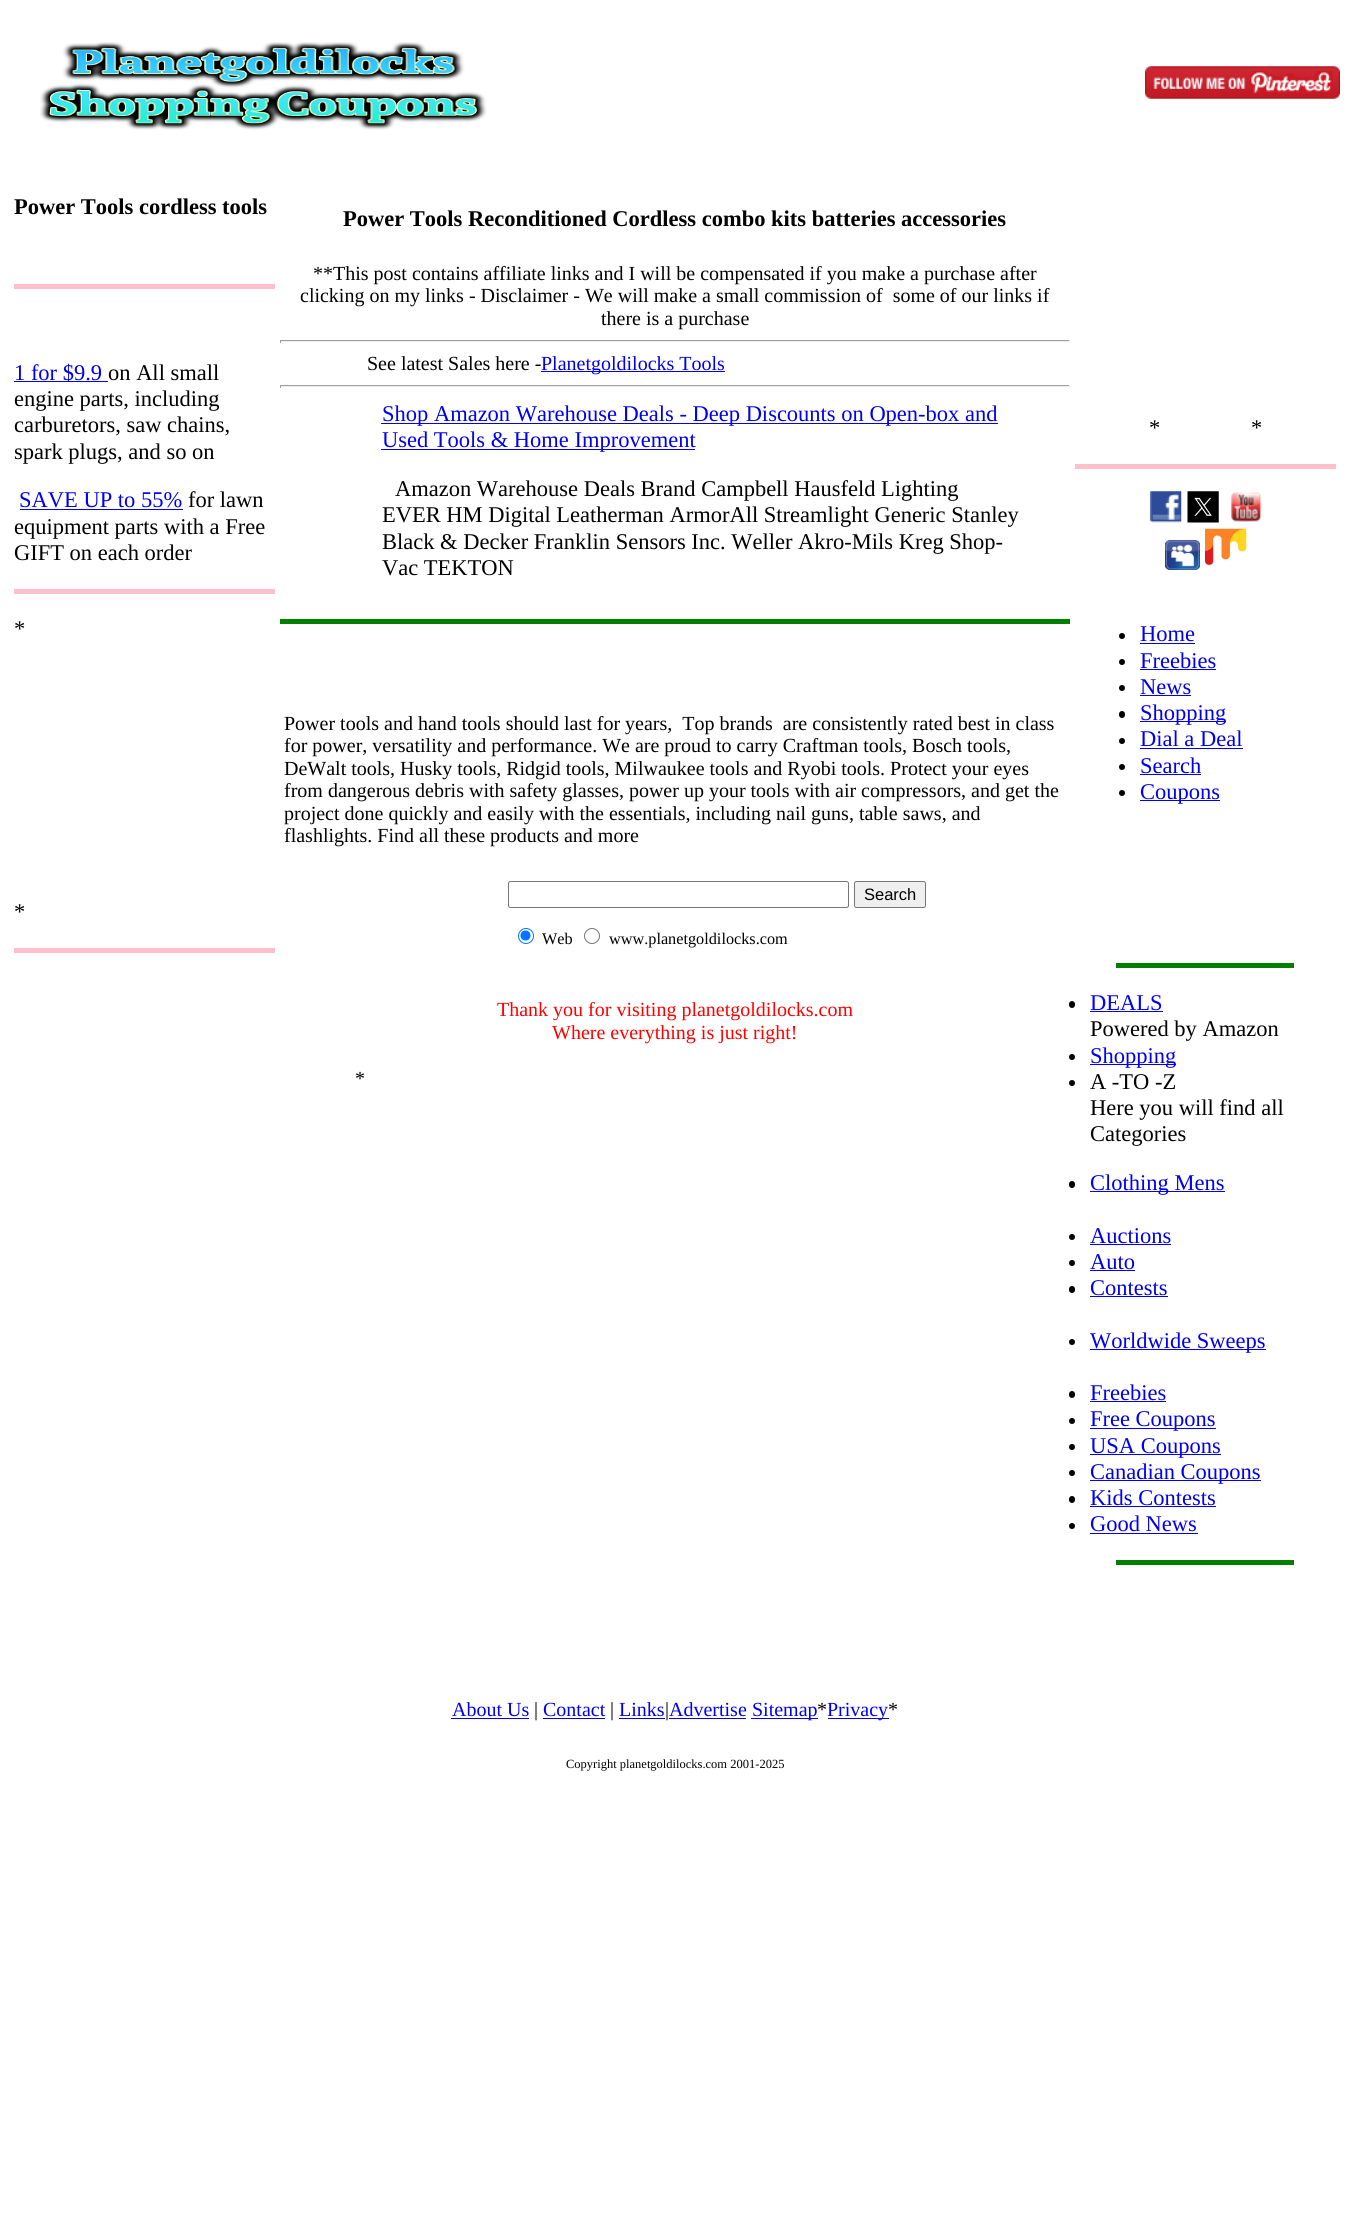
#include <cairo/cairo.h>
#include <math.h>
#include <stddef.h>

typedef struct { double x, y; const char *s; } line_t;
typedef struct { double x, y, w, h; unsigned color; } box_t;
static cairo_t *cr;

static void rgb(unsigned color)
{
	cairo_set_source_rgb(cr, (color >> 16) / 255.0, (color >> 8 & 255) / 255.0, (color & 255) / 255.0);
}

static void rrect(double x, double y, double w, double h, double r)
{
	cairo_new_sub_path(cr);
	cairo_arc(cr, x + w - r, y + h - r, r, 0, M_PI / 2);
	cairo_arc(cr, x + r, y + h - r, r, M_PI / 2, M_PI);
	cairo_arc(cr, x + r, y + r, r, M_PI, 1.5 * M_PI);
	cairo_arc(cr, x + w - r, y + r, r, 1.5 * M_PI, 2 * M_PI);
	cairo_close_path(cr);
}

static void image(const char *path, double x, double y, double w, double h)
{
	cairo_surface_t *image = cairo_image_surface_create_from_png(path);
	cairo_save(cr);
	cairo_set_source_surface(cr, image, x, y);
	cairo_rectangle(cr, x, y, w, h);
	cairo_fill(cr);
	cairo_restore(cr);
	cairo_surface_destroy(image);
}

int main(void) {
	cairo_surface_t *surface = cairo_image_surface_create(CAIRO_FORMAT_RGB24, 1350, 2217);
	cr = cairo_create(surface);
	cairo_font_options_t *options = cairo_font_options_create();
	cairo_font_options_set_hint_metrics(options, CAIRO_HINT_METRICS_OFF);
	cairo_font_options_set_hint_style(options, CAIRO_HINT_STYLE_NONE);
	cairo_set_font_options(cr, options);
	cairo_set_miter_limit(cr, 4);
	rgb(0xffffff);
	cairo_paint(cr);
	image("img/1.png", 40, 42, 447, 88);
	image("img/2.png", 1145, 66, 195, 33);
	{
		static const box_t items[] = {
			{14, 284, 261, 5, 0xffc0cb},
			{14, 381, 94, 1, 0x0000ee},
			{20, 509, 163, 1, 0x0000ee},
			{14, 589, 261, 5, 0xffc0cb},
			{14, 948, 261, 5, 0xffc0cb},
			{280, 340, 790, 1, 0x9f9f9f},
			{1069, 340, 1, 3, 0xeeeeee},
			{280, 341, 790, 1, 0xeeeeee},
			{280, 340, 1, 3, 0x9f9f9f},
			{541, 371, 184, 1, 0x0000ee},
			{280, 385, 790, 1, 0x9f9f9f},
			{1069, 385, 1, 3, 0xeeeeee},
			{280, 386, 790, 1, 0xeeeeee},
			{280, 385, 1, 3, 0x9f9f9f},
			{381, 423, 617, 1, 0x0000ee},
			{381, 449, 314, 1, 0x0000ee},
			{280, 619, 790, 5, 0x008000},
		};
		for (size_t i = 0; i < sizeof items / sizeof *items; i++) {
			rgb(items[i].color);
			cairo_rectangle(cr, items[i].x, items[i].y, items[i].w, items[i].h);
			cairo_fill(cr);
		}
	}
	rrect(508.5, 881.5, 340, 26, 2);
	rgb(0x767676);
	cairo_set_line_width(cr, 1);
	cairo_stroke(cr);
	rgb(0xefefef);
	rrect(854.5, 881.5, 71, 26, 2);
	cairo_fill_preserve(cr);
	rgb(0x767676);
	cairo_stroke(cr);
	cairo_arc(cr, 526, 936, 7.5, 0, 2 * M_PI);
	rgb(0x0075ff);
	cairo_stroke(cr);
	cairo_arc(cr, 525.5, 935.5, 5, 0, 2 * M_PI);
	cairo_fill(cr);
	cairo_arc(cr, 592, 936, 7.5, 0, 2 * M_PI);
	rgb(0x767676);
	cairo_stroke(cr);
	rgb(0xffc0cb);
	cairo_rectangle(cr, 1075, 464, 261, 5);
	cairo_fill(cr);
	image("img/3.png", 1150, 491, 32, 32);
	image("img/4.png", 1187, 491, 32, 32);
	image("img/5.png", 1231, 492, 31, 30);
	image("img/6.png", 1165, 540, 35, 30);
	image("img/7.png", 1205, 528, 42, 39);
	rgb(0x000000);
	cairo_arc(cr, 1122, 636, 3, 0, 2 * M_PI);
	cairo_fill(cr);
	rgb(0x0000ee);
	cairo_rectangle(cr, 1140, 643, 55, 1);
	cairo_fill(cr);
	rgb(0x000000);
	cairo_arc(cr, 1122, 662, 3, 0, 2 * M_PI);
	cairo_fill(cr);
	rgb(0x0000ee);
	cairo_rectangle(cr, 1140, 669, 76, 1);
	cairo_fill(cr);
	rgb(0x000000);
	cairo_arc(cr, 1122, 688, 3, 0, 2 * M_PI);
	cairo_fill(cr);
	rgb(0x0000ee);
	cairo_rectangle(cr, 1140, 695, 51, 1);
	cairo_fill(cr);
	rgb(0x000000);
	rrect(1119, 711, 6, 7, 3);
	cairo_fill(cr);
	rgb(0x0000ee);
	cairo_rectangle(cr, 1140, 721, 86, 1);
	cairo_fill(cr);
	rgb(0x000000);
	cairo_arc(cr, 1122, 741, 3, 0, 2 * M_PI);
	cairo_fill(cr);
	rgb(0x0000ee);
	cairo_rectangle(cr, 1140, 748, 103, 1);
	cairo_fill(cr);
	rgb(0x000000);
	cairo_arc(cr, 1122, 767, 3, 0, 2 * M_PI);
	cairo_fill(cr);
	rgb(0x0000ee);
	cairo_rectangle(cr, 1140, 774, 61, 1);
	cairo_fill(cr);
	rgb(0x000000);
	cairo_arc(cr, 1122, 793, 3, 0, 2 * M_PI);
	cairo_fill(cr);
	rgb(0x0000ee);
	cairo_rectangle(cr, 1140, 800, 80, 1);
	cairo_fill(cr);
	rgb(0x008000);
	cairo_rectangle(cr, 1116, 963, 178, 5);
	cairo_fill(cr);
	rgb(0x000000);
	rrect(1069, 1001, 6, 7, 3);
	cairo_fill(cr);
	rgb(0x0000ff);
	cairo_rectangle(cr, 1090, 1011, 73, 1);
	cairo_fill(cr);
	rgb(0x000000);
	cairo_arc(cr, 1072, 1057, 3, 0, 2 * M_PI);
	cairo_fill(cr);
	rgb(0x0000ee);
	cairo_rectangle(cr, 1090, 1064, 86, 1);
	cairo_fill(cr);
	rgb(0x000000);
	cairo_arc(cr, 1072, 1083, 3, 0, 2 * M_PI);
	cairo_fill(cr);
	rrect(1069, 1181, 6, 7, 3);
	cairo_fill(cr);
	rgb(0x0000ee);
	cairo_rectangle(cr, 1090, 1191, 135, 1);
	cairo_fill(cr);
	rgb(0x000000);
	cairo_arc(cr, 1072, 1237, 3, 0, 2 * M_PI);
	cairo_fill(cr);
	rgb(0x0000ee);
	cairo_rectangle(cr, 1090, 1244, 81, 1);
	cairo_fill(cr);
	rgb(0x000000);
	cairo_arc(cr, 1072, 1263, 3, 0, 2 * M_PI);
	cairo_fill(cr);
	rgb(0x0000ee);
	cairo_rectangle(cr, 1090, 1270, 45, 1);
	cairo_fill(cr);
	rgb(0x000000);
	rrect(1069, 1286, 6, 7, 3);
	cairo_fill(cr);
	rgb(0x0000ee);
	cairo_rectangle(cr, 1090, 1296, 78, 1);
	cairo_fill(cr);
	rgb(0x000000);
	cairo_arc(cr, 1072, 1342, 3, 0, 2 * M_PI);
	cairo_fill(cr);
	rgb(0x0000ee);
	cairo_rectangle(cr, 1090, 1349, 176, 1);
	cairo_fill(cr);
	rgb(0x000000);
	rrect(1069, 1391, 6, 7, 3);
	cairo_fill(cr);
	rgb(0x0000ee);
	cairo_rectangle(cr, 1090, 1401, 76, 1);
	cairo_fill(cr);
	rgb(0x000000);
	cairo_arc(cr, 1072, 1421, 3, 0, 2 * M_PI);
	cairo_fill(cr);
	rgb(0x0000ee);
	cairo_rectangle(cr, 1090, 1428, 126, 1);
	cairo_fill(cr);
	rgb(0x000000);
	cairo_arc(cr, 1072, 1447, 3, 0, 2 * M_PI);
	cairo_fill(cr);
	rgb(0x0000ee);
	cairo_rectangle(cr, 1090, 1454, 131, 1);
	cairo_fill(cr);
	rgb(0x000000);
	cairo_arc(cr, 1072, 1473, 3, 0, 2 * M_PI);
	cairo_fill(cr);
	rgb(0x0000ee);
	cairo_rectangle(cr, 1090, 1480, 171, 1);
	cairo_fill(cr);
	rgb(0x000000);
	rrect(1069, 1496, 6, 7, 3);
	cairo_fill(cr);
	rgb(0x0000ee);
	cairo_rectangle(cr, 1090, 1506, 126, 1);
	cairo_fill(cr);
	rgb(0x000000);
	cairo_arc(cr, 1072, 1526, 3, 0, 2 * M_PI);
	cairo_fill(cr);
	{
		static const box_t items[] = {
			{1090, 1533, 108, 1, 0x0000ee},
			{1116, 1560, 178, 5, 0x008000},
			{451, 1718, 78, 1, 0x0000ee},
			{543, 1718, 62, 1, 0x0000ee},
			{619, 1718, 46, 1, 0x0000ee},
			{669, 1718, 77, 1, 0x0000ee},
			{751, 1718, 67, 1, 0x0000ee},
			{828, 1718, 61, 1, 0x0000ee},
		};
		for (size_t i = 0; i < sizeof items / sizeof *items; i++) {
			rgb(items[i].color);
			cairo_rectangle(cr, items[i].x, items[i].y, items[i].w, items[i].h);
			cairo_fill(cr);
		}
	}
	cairo_select_font_face(cr, "Liberation Serif", CAIRO_FONT_SLANT_NORMAL, CAIRO_FONT_WEIGHT_BOLD);
	cairo_set_font_size(cr, 22.5);
	rgb(0x000000);
	cairo_move_to(cr, 14, 214);
	cairo_show_text(cr, "Power Tools cordless tools");
	cairo_select_font_face(cr, "Liberation Serif", CAIRO_FONT_SLANT_NORMAL, CAIRO_FONT_WEIGHT_NORMAL);
	rgb(0x0000ee);
	cairo_move_to(cr, 14, 380);
	cairo_show_text(cr, "1 for $9.9");
	rgb(0x000000);
	{
		static const line_t items[] = {
			{108, 380, "on All small"},
			{14, 406, "engine parts, including"},
			{14, 432, "carburetors, saw chains,"},
			{14, 459, "spark plugs, and so on"},
		};
		for (size_t i = 0; i < sizeof items / sizeof *items; i++) {
			cairo_move_to(cr, items[i].x, items[i].y);
			cairo_show_text(cr, items[i].s);
		}
	}
	rgb(0x0000ee);
	cairo_move_to(cr, 19, 507);
	cairo_show_text(cr, "SAVE UP to 55%");
	rgb(0x000000);
	{
		static const line_t items[] = {
			{188, 507, "for lawn"},
			{14, 534, "equipment parts with a Free"},
			{14, 560, "GIFT on each order"},
			{14, 636, "*"},
			{14, 919, "*"},
		};
		for (size_t i = 0; i < sizeof items / sizeof *items; i++) {
			cairo_move_to(cr, items[i].x, items[i].y);
			cairo_show_text(cr, items[i].s);
		}
	}
	cairo_select_font_face(cr, "Liberation Serif", CAIRO_FONT_SLANT_NORMAL, CAIRO_FONT_WEIGHT_BOLD);
	cairo_move_to(cr, 343, 226);
	cairo_show_text(cr, "Power Tools Reconditioned Cordless combo kits batteries accessories");
	cairo_select_font_face(cr, "Liberation Serif", CAIRO_FONT_SLANT_NORMAL, CAIRO_FONT_WEIGHT_NORMAL);
	cairo_set_font_size(cr, 20);
	{
		static const line_t items[] = {
			{313, 280, "**This post contains affiliate links and I will be compensated if you make a purchase after"},
			{300, 302, "clicking on my links - Disclaimer - We will make a small commission of  some of our links if"},
			{601, 325, "there is a purchase"},
			{367, 370, "See latest Sales here -"},
		};
		for (size_t i = 0; i < sizeof items / sizeof *items; i++) {
			cairo_move_to(cr, items[i].x, items[i].y);
			cairo_show_text(cr, items[i].s);
		}
	}
	rgb(0x0000ee);
	cairo_move_to(cr, 541, 370);
	cairo_show_text(cr, "Planetgoldilocks Tools");
	cairo_set_font_size(cr, 22.5);
	cairo_move_to(cr, 382, 421);
	cairo_show_text(cr, "Shop Amazon Warehouse Deals - Deep Discounts on Open-box and");
	cairo_move_to(cr, 382, 447);
	cairo_show_text(cr, "Used Tools & Home Improvement");
	rgb(0x000000);
	{
		static const line_t items[] = {
			{395, 496, "Amazon Warehouse Deals Brand Campbell Hausfeld Lighting"},
			{382, 522, "EVER HM Digital Leatherman ArmorAll Streamlight Generic Stanley"},
			{382, 549, "Black & Decker Franklin Sensors Inc. Weller Akro-Mils Kreg Shop-"},
			{382, 575, "Vac TEKTON"},
		};
		for (size_t i = 0; i < sizeof items / sizeof *items; i++) {
			cairo_move_to(cr, items[i].x, items[i].y);
			cairo_show_text(cr, items[i].s);
		}
	}
	cairo_set_font_size(cr, 20);
	{
		static const line_t items[] = {
			{284, 730, "Power tools and hand tools should last for years,  Top brands  are consistently rated best in class"},
			{284, 752, "for power, versatility and performance. We are proud to carry Craftman tools, Bosch tools,"},
			{284, 775, "DeWalt tools, Husky tools, Ridgid tools, Milwaukee tools and Ryobi tools. Protect your eyes"},
			{284, 797, "from dangerous debris with safety glasses, power up your tools with air compressors, and get the"},
			{284, 820, "project done quickly and easily with the essentials, including nail guns, table saws, and"},
			{284, 842, "flashlights. Find all these products and more"},
		};
		for (size_t i = 0; i < sizeof items / sizeof *items; i++) {
			cairo_move_to(cr, items[i].x, items[i].y);
			cairo_show_text(cr, items[i].s);
		}
	}
	cairo_select_font_face(cr, "Liberation Sans", CAIRO_FONT_SLANT_NORMAL, CAIRO_FONT_WEIGHT_NORMAL);
	cairo_set_font_size(cr, 16.5);
	cairo_move_to(cr, 864, 900);
	cairo_show_text(cr, "Search");
	cairo_select_font_face(cr, "Liberation Serif", CAIRO_FONT_SLANT_NORMAL, CAIRO_FONT_WEIGHT_NORMAL);
	cairo_set_font_size(cr, 16.25);
	cairo_move_to(cr, 542, 944);
	cairo_show_text(cr, "Web");
	cairo_move_to(cr, 609, 944);
	cairo_show_text(cr, "www.planetgoldilocks.com");
	cairo_set_font_size(cr, 20);
	rgb(0xff0000);
	cairo_move_to(cr, 497, 1016);
	cairo_show_text(cr, "Thank you for visiting planetgoldilocks.com");
	cairo_move_to(cr, 552, 1039);
	cairo_show_text(cr, "Where everything is just right!");
	rgb(0x000000);
	cairo_move_to(cr, 355, 1085);
	cairo_show_text(cr, "*");
	cairo_set_font_size(cr, 22.5);
	cairo_move_to(cr, 1149, 435);
	cairo_show_text(cr, "*");
	cairo_move_to(cr, 1251, 435);
	cairo_show_text(cr, "*");
	rgb(0x0000ee);
	{
		static const line_t items[] = {
			{1140, 641, "Home"},
			{1140, 668, "Freebies"},
			{1140, 694, "News"},
			{1140, 720, "Shopping"},
			{1140, 746, "Dial a Deal"},
			{1140, 773, "Search"},
			{1140, 799, "Coupons"},
		};
		for (size_t i = 0; i < sizeof items / sizeof *items; i++) {
			cairo_move_to(cr, items[i].x, items[i].y);
			cairo_show_text(cr, items[i].s);
		}
	}
	rgb(0x0000ff);
	cairo_move_to(cr, 1090, 1010);
	cairo_show_text(cr, "DEALS");
	rgb(0x000000);
	cairo_move_to(cr, 1090, 1036);
	cairo_show_text(cr, "Powered by Amazon");
	rgb(0x0000ee);
	cairo_move_to(cr, 1090, 1063);
	cairo_show_text(cr, "Shopping");
	rgb(0x000000);
	{
		static const line_t items[] = {
			{1090, 1089, "A -TO -Z"},
			{1090, 1115, "Here you will find all"},
			{1090, 1141, "Categories"},
		};
		for (size_t i = 0; i < sizeof items / sizeof *items; i++) {
			cairo_move_to(cr, items[i].x, items[i].y);
			cairo_show_text(cr, items[i].s);
		}
	}
	rgb(0x0000ee);
	{
		static const line_t items[] = {
			{1090, 1190, "Clothing Mens"},
			{1090, 1243, "Auctions"},
			{1090, 1269, "Auto"},
			{1090, 1295, "Contests"},
			{1090, 1348, "Worldwide Sweeps"},
			{1090, 1400, "Freebies"},
			{1090, 1426, "Free Coupons"},
			{1090, 1453, "USA Coupons"},
			{1090, 1479, "Canadian Coupons"},
			{1090, 1505, "Kids Contests"},
			{1090, 1531, "Good News"},
		};
		for (size_t i = 0; i < sizeof items / sizeof *items; i++) {
			cairo_move_to(cr, items[i].x, items[i].y);
			cairo_show_text(cr, items[i].s);
		}
	}
	cairo_set_font_size(cr, 20);
	cairo_move_to(cr, 452, 1716);
	cairo_show_text(cr, "About Us");
	rgb(0x000000);
	cairo_move_to(cr, 534, 1716);
	cairo_show_text(cr, "|");
	rgb(0x0000ee);
	cairo_move_to(cr, 543, 1716);
	cairo_show_text(cr, "Contact");
	rgb(0x000000);
	cairo_move_to(cr, 610, 1716);
	cairo_show_text(cr, "|");
	rgb(0x0000ee);
	cairo_move_to(cr, 619, 1716);
	cairo_show_text(cr, "Links");
	rgb(0x000000);
	cairo_move_to(cr, 665, 1716);
	cairo_show_text(cr, "|");
	rgb(0x0000ee);
	cairo_move_to(cr, 669, 1716);
	cairo_show_text(cr, "Advertise");
	cairo_move_to(cr, 752, 1716);
	cairo_show_text(cr, "Sitemap");
	rgb(0x000000);
	cairo_move_to(cr, 817, 1716);
	cairo_show_text(cr, "*");
	rgb(0x0000ee);
	cairo_move_to(cr, 827, 1716);
	cairo_show_text(cr, "Privacy");
	rgb(0x000000);
	cairo_move_to(cr, 888, 1716);
	cairo_show_text(cr, "*");
	cairo_set_font_size(cr, 12.5);
	cairo_move_to(cr, 566, 1768);
	cairo_show_text(cr, "Copyright planetgoldilocks.com 2001-2025");
	cairo_surface_write_to_png(surface, "page.png");
	cairo_font_options_destroy(options);
	cairo_destroy(cr);
	cairo_surface_destroy(surface);
	return 0;
}
